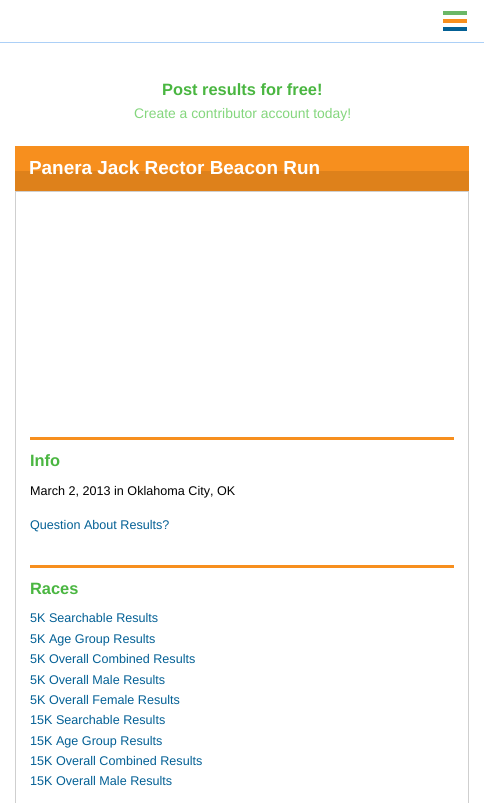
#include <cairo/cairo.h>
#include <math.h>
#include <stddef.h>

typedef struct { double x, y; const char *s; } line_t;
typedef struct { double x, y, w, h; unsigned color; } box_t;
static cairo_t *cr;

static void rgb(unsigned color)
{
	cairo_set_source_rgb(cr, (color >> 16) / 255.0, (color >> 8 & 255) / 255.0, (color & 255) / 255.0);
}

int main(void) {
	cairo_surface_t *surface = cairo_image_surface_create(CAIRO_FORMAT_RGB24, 484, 803);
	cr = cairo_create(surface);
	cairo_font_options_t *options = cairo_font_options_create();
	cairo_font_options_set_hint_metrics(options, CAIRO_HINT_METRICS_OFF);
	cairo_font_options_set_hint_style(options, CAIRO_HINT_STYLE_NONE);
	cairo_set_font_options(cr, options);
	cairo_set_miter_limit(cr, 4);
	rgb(0xffffff);
	cairo_paint(cr);
	{
		static const box_t items[] = {
			{0, 42, 484, 1, 0xacd0f7},
			{443, 11, 24, 4, 0x6bb766},
			{443, 19, 24, 4, 0xf78f1e},
			{443, 27, 24, 4, 0x036095},
			{15, 146, 454, 25, 0xf78f1e},
			{15, 171, 454, 20, 0xde811b},
		};
		for (size_t i = 0; i < sizeof items / sizeof *items; i++) {
			rgb(items[i].color);
			cairo_rectangle(cr, items[i].x, items[i].y, items[i].w, items[i].h);
			cairo_fill(cr);
		}
	}
	cairo_rectangle(cr, 15.5, 191.5, 453, 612);
	rgb(0xcfcfcf);
	cairo_set_line_width(cr, 1);
	cairo_stroke(cr);
	rgb(0xf78f1e);
	cairo_rectangle(cr, 30, 437, 424, 3);
	cairo_fill(cr);
	cairo_rectangle(cr, 30, 565, 424, 3);
	cairo_fill(cr);
	cairo_select_font_face(cr, "Liberation Sans", CAIRO_FONT_SLANT_NORMAL, CAIRO_FONT_WEIGHT_BOLD);
	cairo_set_font_size(cr, 16.4);
	rgb(0x4ab641);
	cairo_move_to(cr, 162, 95);
	cairo_show_text(cr, "Post results for free!");
	cairo_select_font_face(cr, "Liberation Sans", CAIRO_FONT_SLANT_NORMAL, CAIRO_FONT_WEIGHT_NORMAL);
	cairo_set_font_size(cr, 13.9);
	rgb(0x84d67d);
	cairo_move_to(cr, 134, 118);
	cairo_show_text(cr, "Create a contributor account today!");
	cairo_select_font_face(cr, "Liberation Sans", CAIRO_FONT_SLANT_NORMAL, CAIRO_FONT_WEIGHT_BOLD);
	cairo_set_font_size(cr, 18.9);
	rgb(0xffffff);
	cairo_move_to(cr, 29, 174);
	cairo_show_text(cr, "Panera Jack Rector Beacon Run");
	cairo_set_font_size(cr, 16.4);
	rgb(0x4ab641);
	cairo_move_to(cr, 30, 466);
	cairo_show_text(cr, "Info");
	cairo_select_font_face(cr, "Liberation Sans", CAIRO_FONT_SLANT_NORMAL, CAIRO_FONT_WEIGHT_NORMAL);
	cairo_set_font_size(cr, 12.6);
	rgb(0x000000);
	cairo_move_to(cr, 30, 495);
	cairo_show_text(cr, "March 2, 2013 in Oklahoma City, OK");
	rgb(0x036095);
	cairo_move_to(cr, 30, 529);
	cairo_show_text(cr, "Question About Results?");
	cairo_select_font_face(cr, "Liberation Sans", CAIRO_FONT_SLANT_NORMAL, CAIRO_FONT_WEIGHT_BOLD);
	cairo_set_font_size(cr, 16.4);
	rgb(0x4ab641);
	cairo_move_to(cr, 30, 594);
	cairo_show_text(cr, "Races");
	cairo_select_font_face(cr, "Liberation Sans", CAIRO_FONT_SLANT_NORMAL, CAIRO_FONT_WEIGHT_NORMAL);
	cairo_set_font_size(cr, 12.6);
	rgb(0x036095);
	{
		static const line_t items[] = {
			{30, 622, "5K Searchable Results"},
			{30, 643, "5K Age Group Results"},
			{30, 663, "5K Overall Combined Results"},
			{30, 684, "5K Overall Male Results"},
			{30, 704, "5K Overall Female Results"},
			{30, 724, "15K Searchable Results"},
			{30, 745, "15K Age Group Results"},
			{30, 765, "15K Overall Combined Results"},
			{30, 785, "15K Overall Male Results"},
		};
		for (size_t i = 0; i < sizeof items / sizeof *items; i++) {
			cairo_move_to(cr, items[i].x, items[i].y);
			cairo_show_text(cr, items[i].s);
		}
	}
	cairo_surface_write_to_png(surface, "page.png");
	cairo_font_options_destroy(options);
	cairo_destroy(cr);
	cairo_surface_destroy(surface);
	return 0;
}
